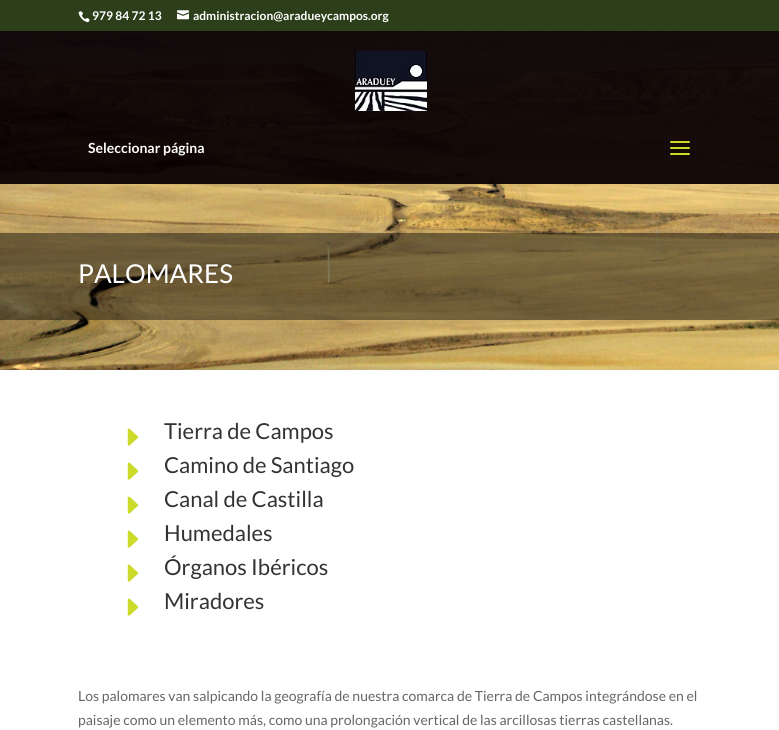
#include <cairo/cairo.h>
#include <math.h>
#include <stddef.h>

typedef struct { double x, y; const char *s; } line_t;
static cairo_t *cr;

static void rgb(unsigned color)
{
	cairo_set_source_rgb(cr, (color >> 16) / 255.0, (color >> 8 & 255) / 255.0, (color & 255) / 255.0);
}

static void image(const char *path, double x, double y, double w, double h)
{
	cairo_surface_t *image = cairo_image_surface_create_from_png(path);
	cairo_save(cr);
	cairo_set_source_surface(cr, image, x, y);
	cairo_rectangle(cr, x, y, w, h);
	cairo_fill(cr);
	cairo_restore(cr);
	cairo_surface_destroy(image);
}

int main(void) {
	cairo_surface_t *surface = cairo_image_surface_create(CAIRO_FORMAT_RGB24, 779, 730);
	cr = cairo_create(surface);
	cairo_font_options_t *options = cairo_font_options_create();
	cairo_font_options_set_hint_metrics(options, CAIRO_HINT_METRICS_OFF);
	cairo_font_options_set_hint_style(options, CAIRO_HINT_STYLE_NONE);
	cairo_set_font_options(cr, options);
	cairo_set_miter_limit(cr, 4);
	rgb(0xffffff);
	cairo_paint(cr);
	rgb(0x2c3f1a);
	cairo_rectangle(cr, 0, 0, 779, 31);
	cairo_fill(cr);
	image("img/1.png", 78, 11, 12, 12);
	image("img/2.png", 177, 10, 12, 10);
	image("img/5.png", 0, 31, 779, 339);
	cairo_set_source_rgba(cr, 0.039, 0, 0.008, 0.94);
	cairo_rectangle(cr, 0, 31, 779, 153);
	cairo_fill(cr);
	image("img/3.png", 355, 51, 72, 60);
	image("img/4.png", 670, 141, 20, 14);
	cairo_set_source_rgba(cr, 0, 0, 0, 0.43);
	cairo_rectangle(cr, 0, 233, 779, 87);
	cairo_fill(cr);
	image("img/6.png", 127, 428, 12, 18);
	image("img/6.png", 127, 462, 12, 18);
	image("img/6.png", 127, 496, 12, 18);
	image("img/6.png", 127, 530, 12, 18);
	image("img/6.png", 127, 564, 12, 18);
	image("img/6.png", 127, 598, 12, 18);
	cairo_select_font_face(cr, "Lato", CAIRO_FONT_SLANT_NORMAL, CAIRO_FONT_WEIGHT_BOLD);
	cairo_set_font_size(cr, 12);
	rgb(0xffffff);
	cairo_move_to(cr, 92, 20);
	cairo_show_text(cr, "979 84 72 13");
	cairo_move_to(cr, 193, 20);
	cairo_show_text(cr, "administracion@aradueycampos.org");
	cairo_set_font_size(cr, 14);
	cairo_move_to(cr, 88, 153);
	cairo_show_text(cr, "Seleccionar página");
	cairo_select_font_face(cr, "Lato", CAIRO_FONT_SLANT_NORMAL, CAIRO_FONT_WEIGHT_NORMAL);
	cairo_set_font_size(cr, 26);
	cairo_move_to(cr, 78, 283);
	cairo_show_text(cr, "PALOMARES");
	cairo_set_font_size(cr, 22);
	rgb(0x333333);
	{
		static const line_t items[] = {
			{164, 439, "Tierra de Campos"},
			{164, 473, "Camino de Santiago"},
			{164, 507, "Canal de Castilla"},
			{164, 541, "Humedales"},
			{164, 575, "Órganos Ibéricos"},
			{164, 609, "Miradores"},
		};
		for (size_t i = 0; i < sizeof items / sizeof *items; i++) {
			cairo_move_to(cr, items[i].x, items[i].y);
			cairo_show_text(cr, items[i].s);
		}
	}
	cairo_set_font_size(cr, 14);
	rgb(0x666666);
	cairo_move_to(cr, 78, 701);
	cairo_show_text(cr, "Los palomares van salpicando la geografía de nuestra comarca de Tierra de Campos integrándose en el");
	cairo_move_to(cr, 78, 725);
	cairo_show_text(cr, "paisaje como un elemento más, como una prolongación vertical de las arcillosas tierras castellanas.");
	cairo_surface_write_to_png(surface, "page.png");
	cairo_font_options_destroy(options);
	cairo_destroy(cr);
	cairo_surface_destroy(surface);
	return 0;
}
